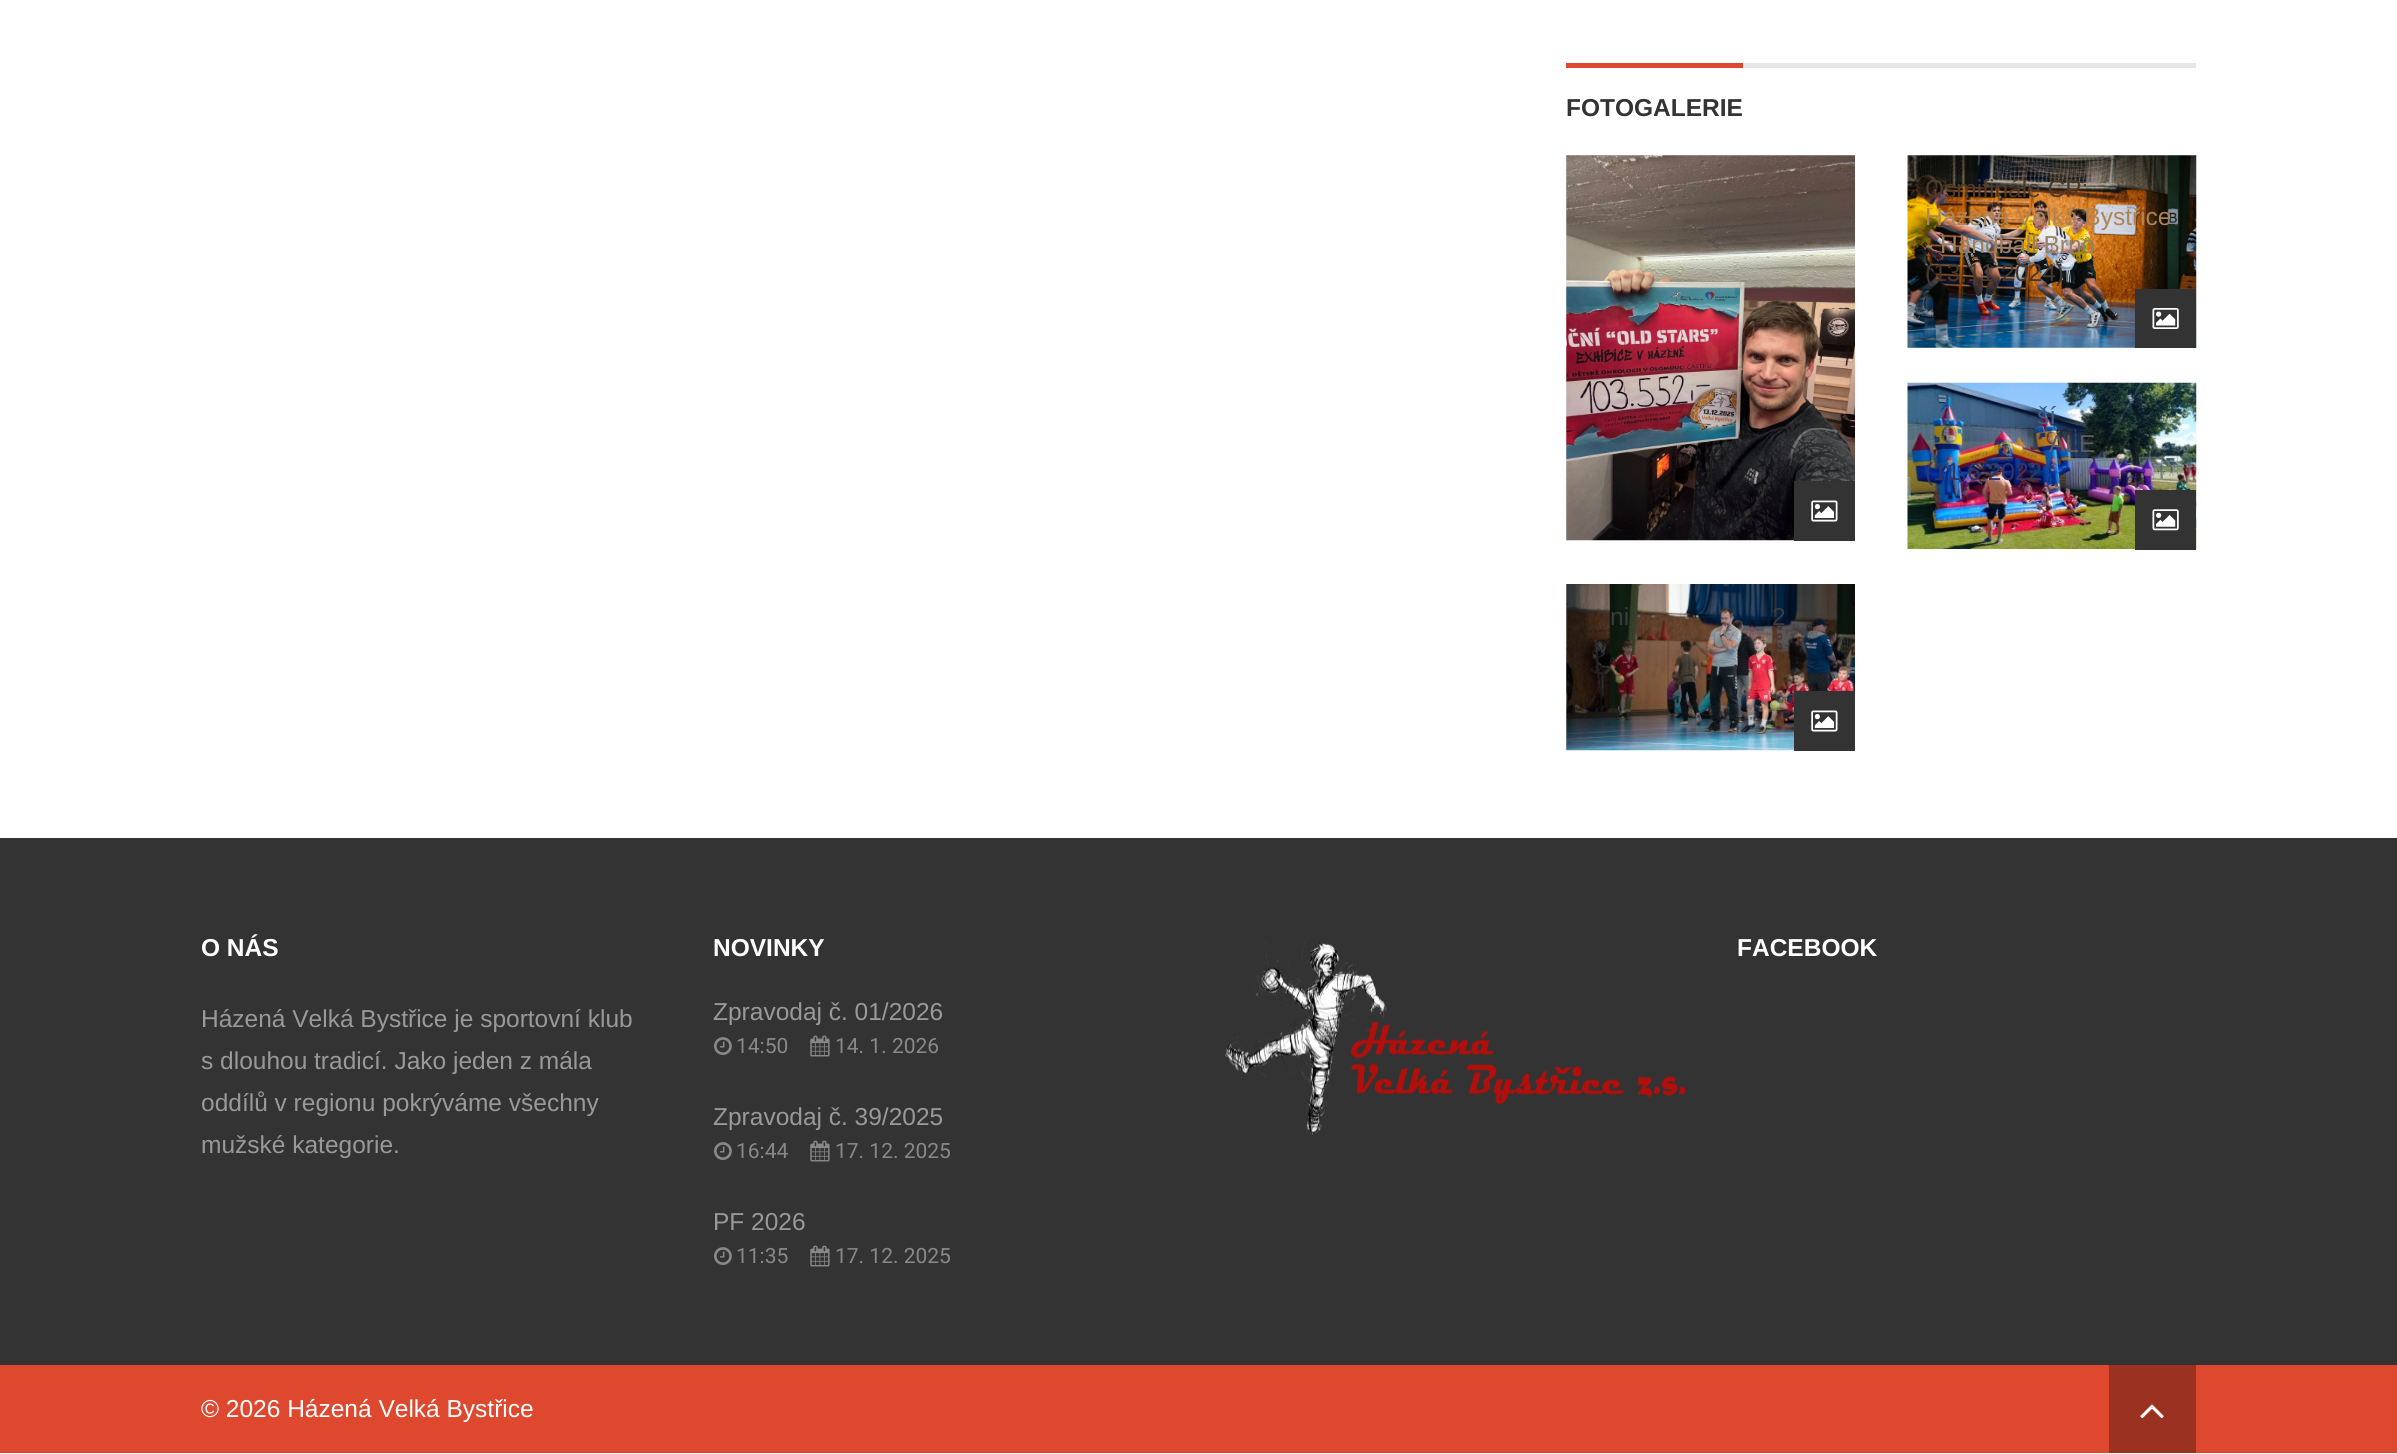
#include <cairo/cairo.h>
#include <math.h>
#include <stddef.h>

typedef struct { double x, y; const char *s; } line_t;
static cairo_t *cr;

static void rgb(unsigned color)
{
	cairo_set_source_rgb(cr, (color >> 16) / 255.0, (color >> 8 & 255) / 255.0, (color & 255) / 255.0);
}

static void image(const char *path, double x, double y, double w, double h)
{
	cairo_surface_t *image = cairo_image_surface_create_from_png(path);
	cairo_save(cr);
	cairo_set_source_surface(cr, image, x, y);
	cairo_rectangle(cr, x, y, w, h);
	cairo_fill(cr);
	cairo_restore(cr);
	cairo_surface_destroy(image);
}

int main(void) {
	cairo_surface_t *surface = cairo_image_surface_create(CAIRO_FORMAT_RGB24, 2397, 1454);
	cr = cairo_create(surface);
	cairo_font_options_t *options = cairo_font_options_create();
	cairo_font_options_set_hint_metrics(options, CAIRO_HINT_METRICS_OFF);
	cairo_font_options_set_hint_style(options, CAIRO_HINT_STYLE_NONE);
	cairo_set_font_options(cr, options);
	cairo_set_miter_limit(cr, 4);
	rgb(0xffffff);
	cairo_paint(cr);
	rgb(0xe6e6e6);
	cairo_rectangle(cr, 1743, 63, 453, 5);
	cairo_fill(cr);
	rgb(0xde482f);
	cairo_rectangle(cr, 1566, 63, 177, 5);
	cairo_fill(cr);
	image("img/1.png", 1566, 155, 289, 386);
	rgb(0x333333);
	cairo_rectangle(cr, 1794, 481, 61, 60);
	cairo_fill(cr);
	image("img/2.png", 1811, 500, 27, 22);
	image("img/3.png", 1907, 155, 290, 193);
	cairo_rectangle(cr, 2135, 289, 61, 59);
	cairo_fill(cr);
	image("img/4.png", 2152, 308, 27, 21);
	image("img/5.png", 1907, 382, 290, 167);
	cairo_rectangle(cr, 2135, 490, 61, 60);
	cairo_fill(cr);
	image("img/6.png", 2152, 509, 27, 22);
	image("img/7.png", 1566, 584, 289, 167);
	cairo_rectangle(cr, 1794, 691, 61, 60);
	cairo_fill(cr);
	image("img/2.png", 1811, 710, 27, 22);
	cairo_rectangle(cr, 0, 838, 2397, 527);
	cairo_fill(cr);
	image("img/8.png", 714, 1037, 18, 18);
	image("img/9.png", 810, 1035, 20, 22);
	image("img/8.png", 714, 1142, 18, 18);
	image("img/9.png", 810, 1140, 20, 22);
	image("img/8.png", 714, 1247, 18, 18);
	image("img/9.png", 810, 1245, 20, 22);
	image("img/10.png", 1225, 936, 461, 199);
	rgb(0xde482f);
	cairo_rectangle(cr, 0, 1365, 2397, 88);
	cairo_fill(cr);
	rgb(0x9b3221);
	cairo_rectangle(cr, 2109, 1365, 87, 88);
	cairo_fill(cr);
	image("img/11.png", 2140, 1404, 24, 15);
	cairo_select_font_face(cr, "Liberation Sans", CAIRO_FONT_SLANT_NORMAL, CAIRO_FONT_WEIGHT_BOLD);
	cairo_set_font_size(cr, 24.5);
	rgb(0x333333);
	cairo_move_to(cr, 1566, 116);
	cairo_show_text(cr, "FOTOGALERIE");
	cairo_select_font_face(cr, "Liberation Sans", CAIRO_FONT_SLANT_NORMAL, CAIRO_FONT_WEIGHT_NORMAL);
	rgb(0x4e3b2a);
	cairo_move_to(cr, 1925, 197);
	cairo_show_text(cr, "Osmifinále ČP:");
	rgb(0xaf8455);
	cairo_move_to(cr, 1925, 225);
	cairo_show_text(cr, "Házená Velká Bystřice");
	rgb(0x978063);
	cairo_move_to(cr, 1925, 253);
	cairo_show_text(cr, "- Handball Brno");
	rgb(0x48392f);
	cairo_move_to(cr, 1925, 281);
	cairo_show_text(cr, "(13.11.2024)");
	rgb(0x445d84);
	cairo_move_to(cr, 1945, 424);
	cairo_show_text(cr, "i");
	cairo_move_to(cr, 2037, 424);
	cairo_show_text(cr, "ší");
	rgb(0x61595e);
	cairo_move_to(cr, 2049, 452);
	cairo_show_text(cr, "ÁLE");
	rgb(0x30366a);
	cairo_move_to(cr, 1925, 480);
	cairo_show_text(cr, "(11.6.2022");
	rgb(0x3e3b3b);
	cairo_move_to(cr, 1610, 625);
	cairo_show_text(cr, "ni");
	cairo_move_to(cr, 1772, 625);
	cairo_show_text(cr, "2");
	cairo_select_font_face(cr, "Liberation Sans", CAIRO_FONT_SLANT_NORMAL, CAIRO_FONT_WEIGHT_BOLD);
	rgb(0xffffff);
	cairo_move_to(cr, 201, 956);
	cairo_show_text(cr, "O NÁS");
	cairo_select_font_face(cr, "Liberation Sans", CAIRO_FONT_SLANT_NORMAL, CAIRO_FONT_WEIGHT_NORMAL);
	rgb(0x999999);
	{
		static const line_t items[] = {
			{201, 1027, "Házená Velká Bystřice je sportovní klub"},
			{201, 1069, "s dlouhou tradicí. Jako jeden z mála"},
			{201, 1111, "oddílů v regionu pokrýváme všechny"},
			{201, 1153, "mužské kategorie."},
		};
		for (size_t i = 0; i < sizeof items / sizeof *items; i++) {
			cairo_move_to(cr, items[i].x, items[i].y);
			cairo_show_text(cr, items[i].s);
		}
	}
	cairo_select_font_face(cr, "Liberation Sans", CAIRO_FONT_SLANT_NORMAL, CAIRO_FONT_WEIGHT_BOLD);
	rgb(0xffffff);
	cairo_move_to(cr, 713, 956);
	cairo_show_text(cr, "NOVINKY");
	cairo_select_font_face(cr, "Liberation Sans", CAIRO_FONT_SLANT_NORMAL, CAIRO_FONT_WEIGHT_NORMAL);
	rgb(0x999999);
	cairo_move_to(cr, 713, 1020);
	cairo_show_text(cr, "Zpravodaj č. 01/2026");
	cairo_select_font_face(cr, "Roboto", CAIRO_FONT_SLANT_NORMAL, CAIRO_FONT_WEIGHT_NORMAL);
	cairo_set_font_size(cr, 21);
	rgb(0x888888);
	cairo_move_to(cr, 736, 1053);
	cairo_show_text(cr, "14:50");
	cairo_move_to(cr, 835, 1053);
	cairo_show_text(cr, "14. 1. 2026");
	cairo_select_font_face(cr, "Liberation Sans", CAIRO_FONT_SLANT_NORMAL, CAIRO_FONT_WEIGHT_NORMAL);
	cairo_set_font_size(cr, 24.5);
	rgb(0x999999);
	cairo_move_to(cr, 713, 1125);
	cairo_show_text(cr, "Zpravodaj č. 39/2025");
	cairo_select_font_face(cr, "Roboto", CAIRO_FONT_SLANT_NORMAL, CAIRO_FONT_WEIGHT_NORMAL);
	cairo_set_font_size(cr, 21);
	rgb(0x888888);
	cairo_move_to(cr, 736, 1158);
	cairo_show_text(cr, "16:44");
	cairo_move_to(cr, 835, 1158);
	cairo_show_text(cr, "17. 12. 2025");
	cairo_select_font_face(cr, "Liberation Sans", CAIRO_FONT_SLANT_NORMAL, CAIRO_FONT_WEIGHT_NORMAL);
	cairo_set_font_size(cr, 24.5);
	rgb(0x999999);
	cairo_move_to(cr, 713, 1230);
	cairo_show_text(cr, "PF 2026");
	cairo_select_font_face(cr, "Roboto", CAIRO_FONT_SLANT_NORMAL, CAIRO_FONT_WEIGHT_NORMAL);
	cairo_set_font_size(cr, 21);
	rgb(0x888888);
	cairo_move_to(cr, 736, 1263);
	cairo_show_text(cr, "11:35");
	cairo_move_to(cr, 835, 1263);
	cairo_show_text(cr, "17. 12. 2025");
	cairo_select_font_face(cr, "Liberation Sans", CAIRO_FONT_SLANT_NORMAL, CAIRO_FONT_WEIGHT_BOLD);
	cairo_set_font_size(cr, 24.5);
	rgb(0xffffff);
	cairo_move_to(cr, 1737, 956);
	cairo_show_text(cr, "FACEBOOK");
	cairo_select_font_face(cr, "Liberation Sans", CAIRO_FONT_SLANT_NORMAL, CAIRO_FONT_WEIGHT_NORMAL);
	cairo_move_to(cr, 201, 1417);
	cairo_show_text(cr, "© 2026 Házená Velká Bystřice");
	cairo_surface_write_to_png(surface, "page.png");
	cairo_font_options_destroy(options);
	cairo_destroy(cr);
	cairo_surface_destroy(surface);
	return 0;
}
